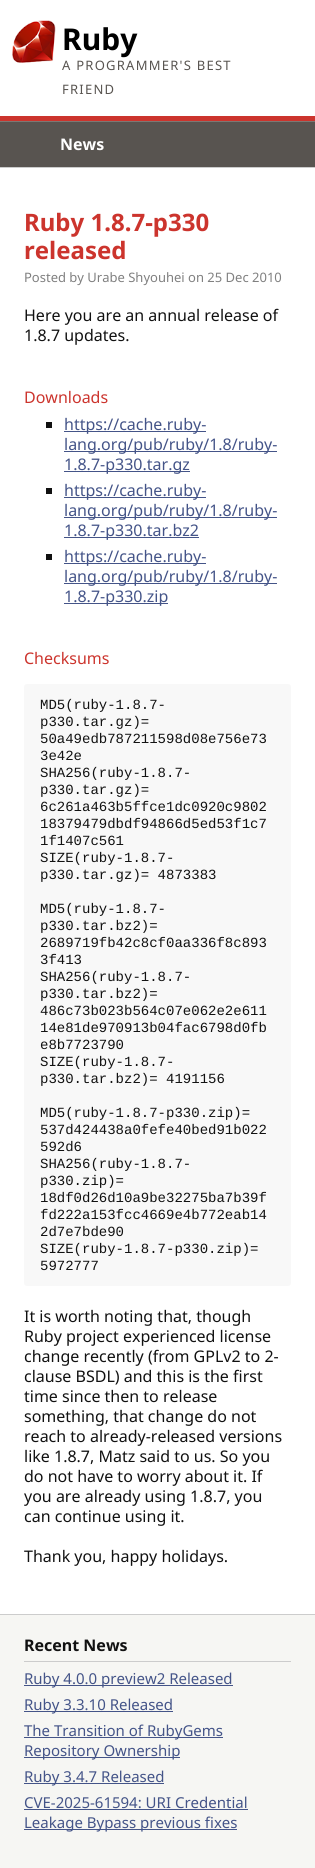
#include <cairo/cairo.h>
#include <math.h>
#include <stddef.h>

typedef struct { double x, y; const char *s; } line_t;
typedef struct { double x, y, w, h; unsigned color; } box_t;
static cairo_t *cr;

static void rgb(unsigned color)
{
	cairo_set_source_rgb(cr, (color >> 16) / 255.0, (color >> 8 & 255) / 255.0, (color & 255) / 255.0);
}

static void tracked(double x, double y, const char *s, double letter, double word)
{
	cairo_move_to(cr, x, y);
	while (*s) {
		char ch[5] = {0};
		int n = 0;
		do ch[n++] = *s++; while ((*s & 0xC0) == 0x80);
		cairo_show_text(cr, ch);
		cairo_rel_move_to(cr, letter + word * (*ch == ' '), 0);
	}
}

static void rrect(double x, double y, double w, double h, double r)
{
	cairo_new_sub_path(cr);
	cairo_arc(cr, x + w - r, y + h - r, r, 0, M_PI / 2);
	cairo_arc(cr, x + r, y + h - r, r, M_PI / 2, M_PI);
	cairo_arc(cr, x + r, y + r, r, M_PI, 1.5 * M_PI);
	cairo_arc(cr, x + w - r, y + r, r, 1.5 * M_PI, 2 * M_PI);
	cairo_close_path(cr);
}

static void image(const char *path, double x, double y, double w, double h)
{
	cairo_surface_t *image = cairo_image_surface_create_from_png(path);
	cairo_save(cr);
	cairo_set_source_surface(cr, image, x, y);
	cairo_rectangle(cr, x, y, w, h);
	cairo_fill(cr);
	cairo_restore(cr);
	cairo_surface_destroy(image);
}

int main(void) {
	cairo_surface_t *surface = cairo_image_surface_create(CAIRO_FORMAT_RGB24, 315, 1868);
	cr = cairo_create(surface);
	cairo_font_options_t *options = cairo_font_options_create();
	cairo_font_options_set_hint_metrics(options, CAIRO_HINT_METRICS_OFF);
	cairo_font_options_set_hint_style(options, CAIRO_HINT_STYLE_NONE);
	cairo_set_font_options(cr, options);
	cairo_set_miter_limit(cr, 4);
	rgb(0xffffff);
	cairo_paint(cr);
	rgb(0xcccccc);
	cairo_rectangle(cr, 0, 167, 315, 1);
	cairo_fill(cr);
	image("img/1.png", 12, 20, 44, 43);
	{
		static const box_t items[] = {
			{0, 122, 315, 45, 0x585450},
			{0, 116, 315, 5, 0xcc342d},
			{0, 121, 315, 1, 0x7c7874},
			{46, 422, 6, 6, 0x111111},
			{64, 431, 142, 1, 0x445488},
			{64, 451, 213, 1, 0x445488},
			{64, 471, 126, 1, 0x445488},
			{46, 488, 6, 6, 0x111111},
			{64, 497, 142, 1, 0x445488},
			{64, 517, 213, 1, 0x445488},
			{64, 537, 135, 1, 0x445488},
			{46, 554, 6, 6, 0x111111},
			{64, 563, 142, 1, 0x445488},
			{64, 583, 213, 1, 0x445488},
			{64, 603, 104, 1, 0x445488},
		};
		for (size_t i = 0; i < sizeof items / sizeof *items; i++) {
			rgb(items[i].color);
			cairo_rectangle(cr, items[i].x, items[i].y, items[i].w, items[i].h);
			cairo_fill(cr);
		}
	}
	rgb(0xf8f8f8);
	rrect(24, 684, 267, 602, 3);
	cairo_fill(cr);
	{
		static const box_t items[] = {
			{0, 1615, 315, 253, 0xf6f6f3},
			{0, 1614, 315, 1, 0xcccccc},
			{24, 1661, 267, 1, 0xcccccc},
			{24, 1685, 209, 1, 0x445488},
			{24, 1711, 149, 1, 0x445488},
			{24, 1737, 199, 1, 0x445488},
			{24, 1757, 156, 1, 0x445488},
			{24, 1783, 140, 1, 0x445488},
			{24, 1809, 224, 1, 0x445488},
			{24, 1829, 213, 1, 0x445488},
		};
		for (size_t i = 0; i < sizeof items / sizeof *items; i++) {
			rgb(items[i].color);
			cairo_rectangle(cr, items[i].x, items[i].y, items[i].w, items[i].h);
			cairo_fill(cr);
		}
	}
	cairo_select_font_face(cr, "Noto Sans", CAIRO_FONT_SLANT_NORMAL, CAIRO_FONT_WEIGHT_BOLD);
	cairo_set_font_size(cr, 30);
	rgb(0x000000);
	cairo_move_to(cr, 62, 50);
	cairo_show_text(cr, "Ruby");
	cairo_select_font_face(cr, "Noto Sans", CAIRO_FONT_SLANT_NORMAL, CAIRO_FONT_WEIGHT_NORMAL);
	cairo_set_font_size(cr, 13);
	rgb(0x585450);
	tracked(62, 70, "A PROGRAMMER'S BEST", 1.25, 0);
	tracked(62, 94, "FRIEND", 1.25, 0);
	cairo_select_font_face(cr, "Noto Sans", CAIRO_FONT_SLANT_NORMAL, CAIRO_FONT_WEIGHT_BOLD);
	cairo_set_font_size(cr, 16);
	rgb(0xffffff);
	cairo_move_to(cr, 60, 150);
	cairo_show_text(cr, "News");
	cairo_set_font_size(cr, 24);
	rgb(0xcc342d);
	cairo_move_to(cr, 24, 231);
	cairo_show_text(cr, "Ruby 1.8.7-p330");
	cairo_move_to(cr, 24, 259);
	cairo_show_text(cr, "released");
	cairo_select_font_face(cr, "Noto Sans", CAIRO_FONT_SLANT_NORMAL, CAIRO_FONT_WEIGHT_NORMAL);
	cairo_set_font_size(cr, 13);
	rgb(0x808080);
	cairo_move_to(cr, 24, 282);
	cairo_show_text(cr, "Posted by Urabe Shyouhei on 25 Dec 2010");
	cairo_set_font_size(cr, 16);
	rgb(0x111111);
	cairo_move_to(cr, 24, 321);
	cairo_show_text(cr, "Here you are an annual release of");
	cairo_move_to(cr, 24, 341);
	cairo_show_text(cr, "1.8.7 updates.");
	rgb(0xcc342d);
	cairo_move_to(cr, 24, 403);
	cairo_show_text(cr, "Downloads");
	rgb(0x445488);
	{
		static const line_t items[] = {
			{64, 430, "https://cache.ruby-"},
			{64, 450, "lang.org/pub/ruby/1.8/ruby-"},
			{64, 470, "1.8.7-p330.tar.gz"},
			{64, 496, "https://cache.ruby-"},
			{64, 516, "lang.org/pub/ruby/1.8/ruby-"},
			{64, 536, "1.8.7-p330.tar.bz2"},
			{64, 562, "https://cache.ruby-"},
			{64, 582, "lang.org/pub/ruby/1.8/ruby-"},
			{64, 602, "1.8.7-p330.zip"},
		};
		for (size_t i = 0; i < sizeof items / sizeof *items; i++) {
			cairo_move_to(cr, items[i].x, items[i].y);
			cairo_show_text(cr, items[i].s);
		}
	}
	rgb(0xcc342d);
	cairo_move_to(cr, 24, 664);
	cairo_show_text(cr, "Checksums");
	cairo_select_font_face(cr, "Liberation Mono", CAIRO_FONT_SLANT_NORMAL, CAIRO_FONT_WEIGHT_NORMAL);
	cairo_set_font_size(cr, 14);
	rgb(0x111111);
	{
		static const line_t items[] = {
			{40, 709, "MD5(ruby-1.8.7-"},
			{40, 726, "p330.tar.gz)="},
			{40, 743, "50a49edb787211598d08e756e73"},
			{40, 760, "3e42e"},
			{40, 777, "SHA256(ruby-1.8.7-"},
			{40, 794, "p330.tar.gz)="},
			{40, 811, "6c261a463b5ffce1dc0920c9802"},
			{40, 828, "18379479dbdf94866d5ed53f1c7"},
			{40, 845, "1f1407c561"},
			{40, 862, "SIZE(ruby-1.8.7-"},
			{40, 879, "p330.tar.gz)= 4873383"},
			{40, 913, "MD5(ruby-1.8.7-"},
			{40, 930, "p330.tar.bz2)="},
			{40, 947, "2689719fb42c8cf0aa336f8c893"},
			{40, 964, "3f413"},
			{40, 981, "SHA256(ruby-1.8.7-"},
			{40, 998, "p330.tar.bz2)="},
			{40, 1015, "486c73b023b564c07e062e2e611"},
			{40, 1032, "14e81de970913b04fac6798d0fb"},
			{40, 1049, "e8b7723790"},
			{40, 1066, "SIZE(ruby-1.8.7-"},
			{40, 1083, "p330.tar.bz2)= 4191156"},
			{40, 1117, "MD5(ruby-1.8.7-p330.zip)="},
			{40, 1134, "537d424438a0fefe40bed91b022"},
			{40, 1151, "592d6"},
			{40, 1168, "SHA256(ruby-1.8.7-"},
			{40, 1185, "p330.zip)="},
			{40, 1202, "18df0d26d10a9be32275ba7b39f"},
			{40, 1219, "fd222a153fcc4669e4b772eab14"},
			{40, 1236, "2d7e7bde90"},
			{40, 1253, "SIZE(ruby-1.8.7-p330.zip)="},
			{40, 1270, "5972777"},
		};
		for (size_t i = 0; i < sizeof items / sizeof *items; i++) {
			cairo_move_to(cr, items[i].x, items[i].y);
			cairo_show_text(cr, items[i].s);
		}
	}
	cairo_select_font_face(cr, "Noto Sans", CAIRO_FONT_SLANT_NORMAL, CAIRO_FONT_WEIGHT_NORMAL);
	cairo_set_font_size(cr, 16);
	{
		static const line_t items[] = {
			{24, 1322, "It is worth noting that, though"},
			{24, 1342, "Ruby project experienced license"},
			{24, 1362, "change recently (from GPLv2 to 2-"},
			{24, 1382, "clause BSDL) and this is the first"},
			{24, 1402, "time since then to release"},
			{24, 1422, "something, that change do not"},
			{24, 1442, "reach to already-released versions"},
			{24, 1462, "like 1.8.7, Matz said to us. So you"},
			{24, 1482, "do not have to worry about it. If"},
			{24, 1502, "you are already using 1.8.7, you"},
			{24, 1522, "can continue using it."},
			{24, 1562, "Thank you, happy holidays."},
		};
		for (size_t i = 0; i < sizeof items / sizeof *items; i++) {
			cairo_move_to(cr, items[i].x, items[i].y);
			cairo_show_text(cr, items[i].s);
		}
	}
	cairo_select_font_face(cr, "Noto Sans", CAIRO_FONT_SLANT_NORMAL, CAIRO_FONT_WEIGHT_BOLD);
	cairo_move_to(cr, 24, 1651);
	cairo_show_text(cr, "Recent News");
	cairo_select_font_face(cr, "Noto Sans", CAIRO_FONT_SLANT_NORMAL, CAIRO_FONT_WEIGHT_NORMAL);
	cairo_set_font_size(cr, 15);
	rgb(0x445488);
	{
		static const line_t items[] = {
			{24, 1684, "Ruby 4.0.0 preview2 Released"},
			{24, 1710, "Ruby 3.3.10 Released"},
			{24, 1736, "The Transition of RubyGems"},
			{24, 1756, "Repository Ownership"},
			{24, 1782, "Ruby 3.4.7 Released"},
			{24, 1808, "CVE-2025-61594: URI Credential"},
			{24, 1828, "Leakage Bypass previous fixes"},
		};
		for (size_t i = 0; i < sizeof items / sizeof *items; i++) {
			cairo_move_to(cr, items[i].x, items[i].y);
			cairo_show_text(cr, items[i].s);
		}
	}
	cairo_surface_write_to_png(surface, "page.png");
	cairo_font_options_destroy(options);
	cairo_destroy(cr);
	cairo_surface_destroy(surface);
	return 0;
}
